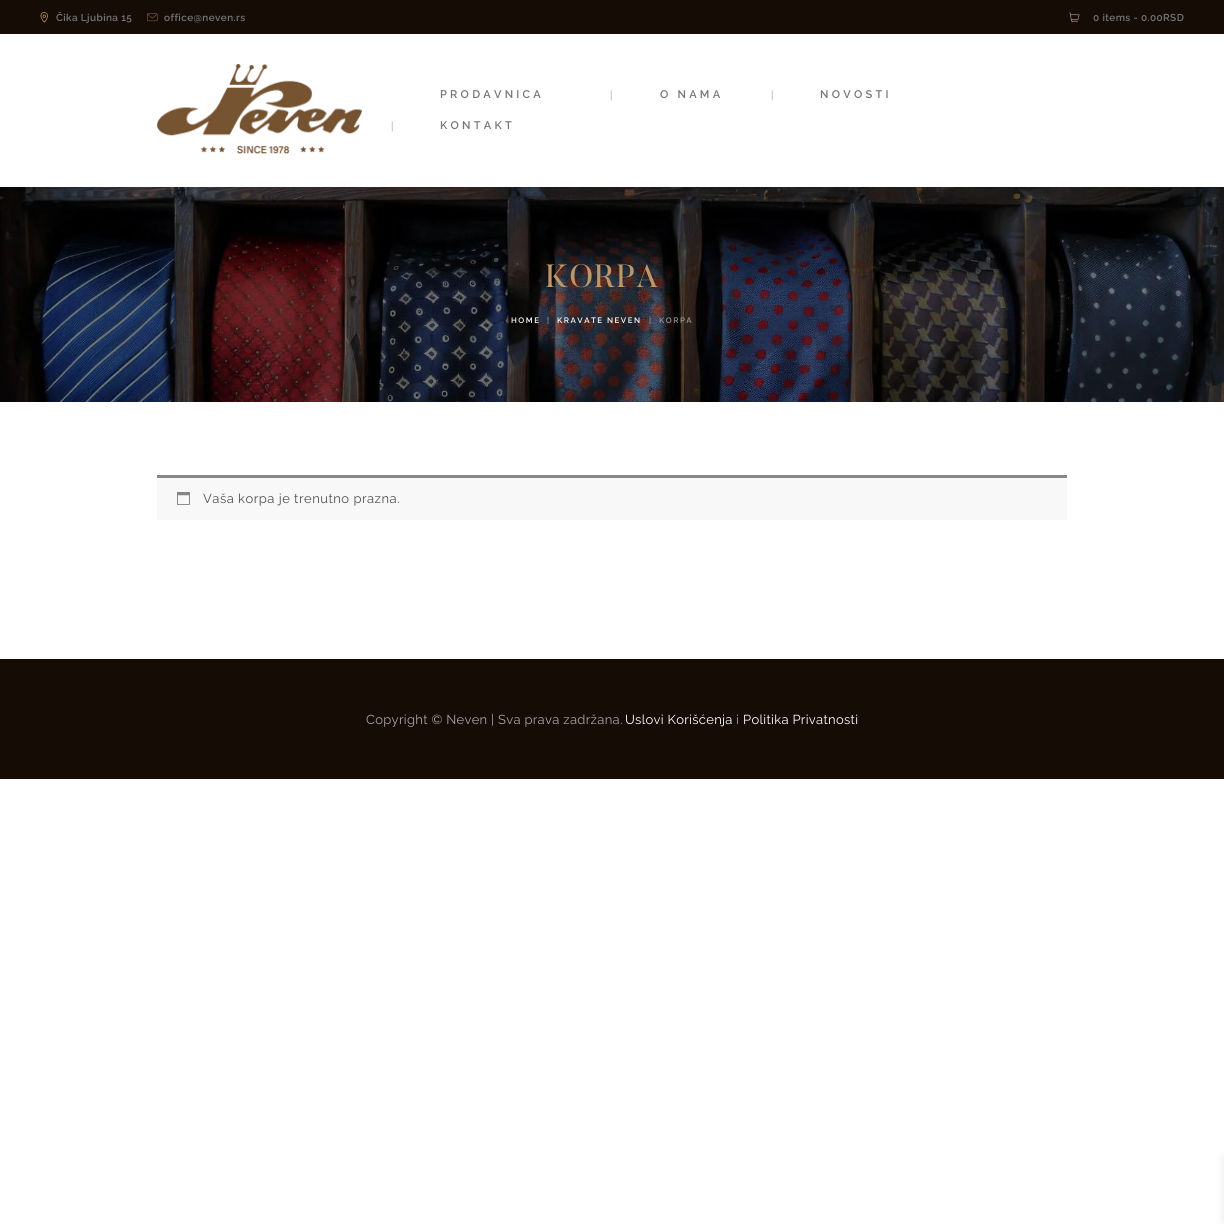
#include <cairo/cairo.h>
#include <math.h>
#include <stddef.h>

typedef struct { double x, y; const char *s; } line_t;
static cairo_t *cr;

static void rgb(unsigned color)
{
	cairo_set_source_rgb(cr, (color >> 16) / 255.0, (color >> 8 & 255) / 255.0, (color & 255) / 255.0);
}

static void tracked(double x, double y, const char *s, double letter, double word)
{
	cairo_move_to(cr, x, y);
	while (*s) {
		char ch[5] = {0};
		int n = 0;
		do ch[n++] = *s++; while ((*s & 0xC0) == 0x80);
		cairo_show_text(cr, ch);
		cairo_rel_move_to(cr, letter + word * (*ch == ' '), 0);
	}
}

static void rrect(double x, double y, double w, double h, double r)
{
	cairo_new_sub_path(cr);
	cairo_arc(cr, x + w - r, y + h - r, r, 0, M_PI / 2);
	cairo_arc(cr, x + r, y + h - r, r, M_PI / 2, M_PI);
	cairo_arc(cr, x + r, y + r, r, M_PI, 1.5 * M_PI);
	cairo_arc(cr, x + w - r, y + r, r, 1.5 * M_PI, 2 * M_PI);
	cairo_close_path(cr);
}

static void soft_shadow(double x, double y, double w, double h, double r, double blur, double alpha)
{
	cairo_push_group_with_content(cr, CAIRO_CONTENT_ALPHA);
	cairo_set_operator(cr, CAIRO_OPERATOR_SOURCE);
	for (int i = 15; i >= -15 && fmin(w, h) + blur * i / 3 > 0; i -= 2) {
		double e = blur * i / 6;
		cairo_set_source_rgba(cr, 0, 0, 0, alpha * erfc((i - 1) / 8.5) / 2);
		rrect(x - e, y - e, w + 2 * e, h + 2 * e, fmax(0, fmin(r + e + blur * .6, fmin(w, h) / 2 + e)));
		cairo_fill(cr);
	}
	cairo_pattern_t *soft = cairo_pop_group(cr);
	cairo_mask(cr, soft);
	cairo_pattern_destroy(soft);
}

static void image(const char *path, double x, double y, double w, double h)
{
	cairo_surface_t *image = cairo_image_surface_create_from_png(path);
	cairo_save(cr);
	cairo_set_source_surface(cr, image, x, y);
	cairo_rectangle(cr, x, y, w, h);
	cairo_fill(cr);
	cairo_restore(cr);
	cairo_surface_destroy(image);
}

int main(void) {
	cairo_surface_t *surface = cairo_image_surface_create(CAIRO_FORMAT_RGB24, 1224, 1224);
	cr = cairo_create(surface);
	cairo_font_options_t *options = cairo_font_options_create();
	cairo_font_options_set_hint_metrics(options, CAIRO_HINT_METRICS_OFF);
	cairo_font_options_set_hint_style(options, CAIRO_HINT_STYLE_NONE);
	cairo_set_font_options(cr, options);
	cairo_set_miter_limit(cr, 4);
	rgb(0xffffff);
	cairo_paint(cr);
	image("img/1.png", 0, 187, 1224, 215);
	rgb(0x160c06);
	cairo_rectangle(cr, 0, 0, 1224, 34);
	cairo_fill(cr);
	image("img/2.png", 40, 12, 8, 11);
	image("img/3.png", 147, 13, 11, 9);
	image("img/4.png", 1069, 12, 11, 11);
	image("img/5.png", 157, 64, 205, 90);
	rgb(0xf9f8f8);
	cairo_rectangle(cr, 157, 478, 910, 42);
	cairo_fill(cr);
	rgb(0x878686);
	cairo_rectangle(cr, 157, 475, 910, 3);
	cairo_fill(cr);
	image("img/6.png", 177, 492, 13, 13);
	rgb(0x160c06);
	cairo_rectangle(cr, 0, 659, 1224, 120);
	cairo_fill(cr);
	rgb(0x000000);
	soft_shadow(1224, 1158, 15, 65, 0, 5, 0.1);
	cairo_select_font_face(cr, "Raleway SemiBold", CAIRO_FONT_SLANT_NORMAL, CAIRO_FONT_WEIGHT_NORMAL);
	cairo_set_font_size(cr, 10);
	rgb(0x757575);
	{
		static const line_t items[] = {
			{56, 21, "Čika Ljubina 15"},
			{164, 21, "office@neven.rs"},
			{1093, 21, "0 items - 0.00RSD"},
		};
		for (size_t i = 0; i < sizeof items / sizeof *items; i++) {
			tracked(items[i].x, items[i].y, items[i].s, 0.4, 0);
		}
	}
	cairo_set_font_size(cr, 11);
	tracked(440, 98, "PRODAVNICA", 3.25, 0);
	cairo_select_font_face(cr, "Liberation Serif", CAIRO_FONT_SLANT_NORMAL, CAIRO_FONT_WEIGHT_BOLD);
	rgb(0xb2b2b2);
	tracked(610, 98, "|", 3.25, 0);
	cairo_select_font_face(cr, "Raleway SemiBold", CAIRO_FONT_SLANT_NORMAL, CAIRO_FONT_WEIGHT_NORMAL);
	rgb(0x757575);
	tracked(660, 98, "O NAMA", 3.25, 0);
	cairo_select_font_face(cr, "Liberation Serif", CAIRO_FONT_SLANT_NORMAL, CAIRO_FONT_WEIGHT_BOLD);
	rgb(0xb2b2b2);
	tracked(771, 98, "|", 3.25, 0);
	cairo_select_font_face(cr, "Raleway SemiBold", CAIRO_FONT_SLANT_NORMAL, CAIRO_FONT_WEIGHT_NORMAL);
	rgb(0x757575);
	tracked(820, 98, "NOVOSTI", 3.25, 0);
	cairo_select_font_face(cr, "Liberation Serif", CAIRO_FONT_SLANT_NORMAL, CAIRO_FONT_WEIGHT_BOLD);
	rgb(0xb2b2b2);
	tracked(391, 129, "|", 3.25, 0);
	cairo_select_font_face(cr, "Raleway SemiBold", CAIRO_FONT_SLANT_NORMAL, CAIRO_FONT_WEIGHT_NORMAL);
	rgb(0x757575);
	tracked(440, 129, "KONTAKT", 3.25, 0);
	cairo_select_font_face(cr, "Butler", CAIRO_FONT_SLANT_NORMAL, CAIRO_FONT_WEIGHT_NORMAL);
	cairo_set_font_size(cr, 32);
	rgb(0xbe9667);
	tracked(545, 287, "KORPA", 1.25, 0);
	cairo_select_font_face(cr, "Raleway SemiBold", CAIRO_FONT_SLANT_NORMAL, CAIRO_FONT_WEIGHT_NORMAL);
	cairo_set_font_size(cr, 7.9);
	rgb(0xffffff);
	tracked(511, 323, "HOME", 1.5, 0);
	rgb(0x979797);
	tracked(547, 323, "|", 1.5, 0);
	rgb(0xffffff);
	tracked(557, 323, "KRAVATE NEVEN", 1.5, 0);
	rgb(0x979797);
	tracked(649, 323, "|", 1.5, 0);
	tracked(659, 323, "KORPA", 1.5, 0);
	cairo_select_font_face(cr, "Raleway", CAIRO_FONT_SLANT_NORMAL, CAIRO_FONT_WEIGHT_NORMAL);
	cairo_set_font_size(cr, 13);
	rgb(0x515151);
	tracked(203, 503, "Vaša korpa je trenutno prazna.", 0.5, 0);
	rgb(0xa4a4a4);
	tracked(366, 724, "Copyright © Neven | Sva prava zadržana.", 0.3, 0);
	rgb(0xffffff);
	tracked(625, 724, "Uslovi Korišćenja", 0.3, 0);
	rgb(0xa4a4a4);
	tracked(736, 724, "i", 0.3, 0);
	rgb(0xffffff);
	tracked(743, 724, "Politika Privatnosti", 0.3, 0);
	cairo_surface_write_to_png(surface, "page.png");
	cairo_font_options_destroy(options);
	cairo_destroy(cr);
	cairo_surface_destroy(surface);
	return 0;
}
